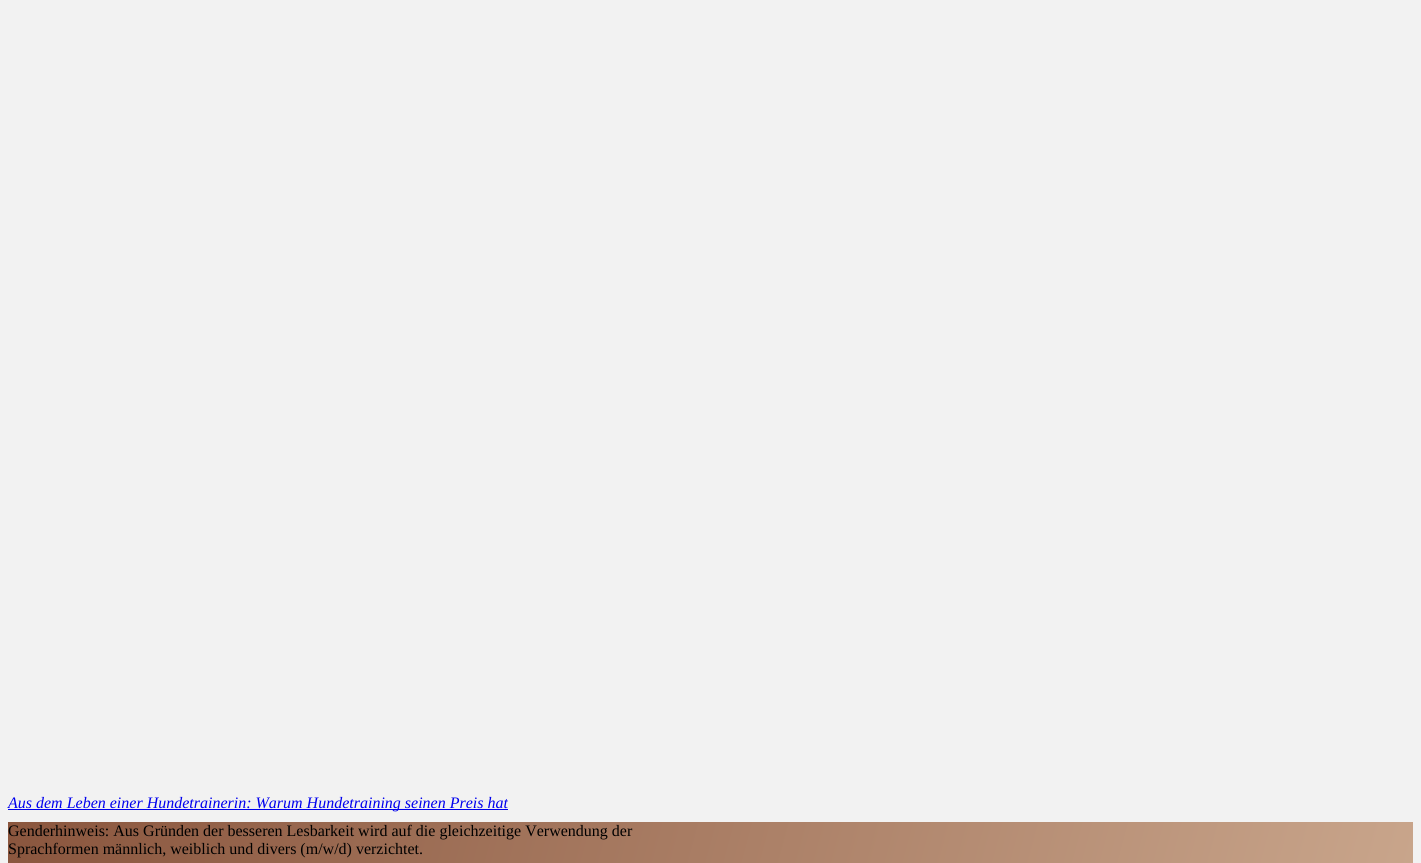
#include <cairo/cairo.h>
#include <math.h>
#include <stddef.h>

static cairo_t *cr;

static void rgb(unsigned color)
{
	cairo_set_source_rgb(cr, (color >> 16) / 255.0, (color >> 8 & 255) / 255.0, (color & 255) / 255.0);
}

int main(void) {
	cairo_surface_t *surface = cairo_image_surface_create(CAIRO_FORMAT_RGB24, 1421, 863);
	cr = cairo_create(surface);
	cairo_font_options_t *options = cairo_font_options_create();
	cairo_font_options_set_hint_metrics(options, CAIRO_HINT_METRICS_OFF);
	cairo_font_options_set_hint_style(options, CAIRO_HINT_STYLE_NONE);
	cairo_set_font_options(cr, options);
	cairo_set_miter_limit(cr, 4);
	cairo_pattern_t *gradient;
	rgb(0xf2f2f2);
	cairo_paint(cr);
	rgb(0x0000ee);
	cairo_rectangle(cr, 8, 809, 500, 1);
	cairo_fill(cr);
	gradient = cairo_pattern_create_linear(1396, 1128, 25, 760);
	cairo_pattern_add_color_stop_rgba(gradient, 0, 0.796, 0.659, 0.557, 1);
	cairo_pattern_add_color_stop_rgba(gradient, 1, 0.541, 0.337, 0.243, 1);
	cairo_set_source(cr, gradient);
	cairo_pattern_destroy(gradient);
	cairo_rectangle(cr, 8, 822, 1405, 41);
	cairo_fill(cr);
	cairo_select_font_face(cr, "Liberation Serif", CAIRO_FONT_SLANT_ITALIC, CAIRO_FONT_WEIGHT_NORMAL);
	cairo_set_font_size(cr, 16);
	rgb(0x0000ee);
	cairo_move_to(cr, 8, 808);
	cairo_show_text(cr, "Aus dem Leben einer Hundetrainerin: Warum Hundetraining seinen Preis hat");
	cairo_select_font_face(cr, "Liberation Serif", CAIRO_FONT_SLANT_NORMAL, CAIRO_FONT_WEIGHT_NORMAL);
	rgb(0x000000);
	cairo_move_to(cr, 8, 836);
	cairo_show_text(cr, "Genderhinweis: Aus Gründen der besseren Lesbarkeit wird auf die gleichzeitige Verwendung der");
	cairo_move_to(cr, 8, 854);
	cairo_show_text(cr, "Sprachformen männlich, weiblich und divers (m/w/d) verzichtet.");
	cairo_surface_write_to_png(surface, "page.png");
	cairo_font_options_destroy(options);
	cairo_destroy(cr);
	cairo_surface_destroy(surface);
	return 0;
}
